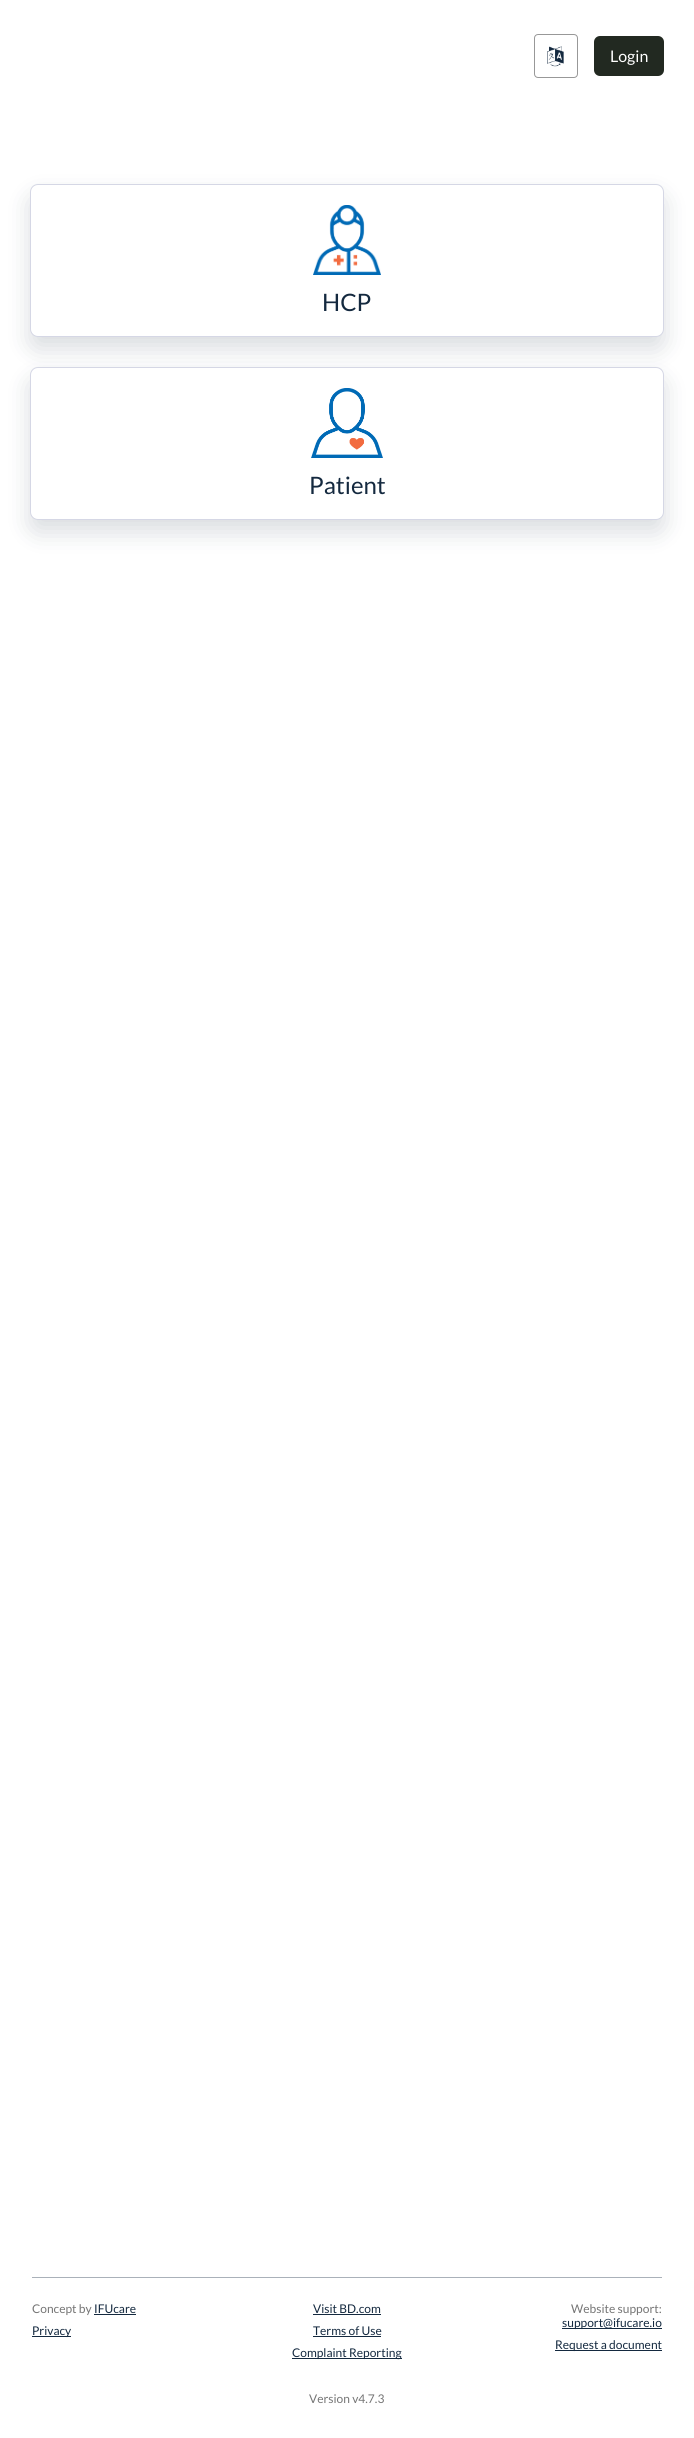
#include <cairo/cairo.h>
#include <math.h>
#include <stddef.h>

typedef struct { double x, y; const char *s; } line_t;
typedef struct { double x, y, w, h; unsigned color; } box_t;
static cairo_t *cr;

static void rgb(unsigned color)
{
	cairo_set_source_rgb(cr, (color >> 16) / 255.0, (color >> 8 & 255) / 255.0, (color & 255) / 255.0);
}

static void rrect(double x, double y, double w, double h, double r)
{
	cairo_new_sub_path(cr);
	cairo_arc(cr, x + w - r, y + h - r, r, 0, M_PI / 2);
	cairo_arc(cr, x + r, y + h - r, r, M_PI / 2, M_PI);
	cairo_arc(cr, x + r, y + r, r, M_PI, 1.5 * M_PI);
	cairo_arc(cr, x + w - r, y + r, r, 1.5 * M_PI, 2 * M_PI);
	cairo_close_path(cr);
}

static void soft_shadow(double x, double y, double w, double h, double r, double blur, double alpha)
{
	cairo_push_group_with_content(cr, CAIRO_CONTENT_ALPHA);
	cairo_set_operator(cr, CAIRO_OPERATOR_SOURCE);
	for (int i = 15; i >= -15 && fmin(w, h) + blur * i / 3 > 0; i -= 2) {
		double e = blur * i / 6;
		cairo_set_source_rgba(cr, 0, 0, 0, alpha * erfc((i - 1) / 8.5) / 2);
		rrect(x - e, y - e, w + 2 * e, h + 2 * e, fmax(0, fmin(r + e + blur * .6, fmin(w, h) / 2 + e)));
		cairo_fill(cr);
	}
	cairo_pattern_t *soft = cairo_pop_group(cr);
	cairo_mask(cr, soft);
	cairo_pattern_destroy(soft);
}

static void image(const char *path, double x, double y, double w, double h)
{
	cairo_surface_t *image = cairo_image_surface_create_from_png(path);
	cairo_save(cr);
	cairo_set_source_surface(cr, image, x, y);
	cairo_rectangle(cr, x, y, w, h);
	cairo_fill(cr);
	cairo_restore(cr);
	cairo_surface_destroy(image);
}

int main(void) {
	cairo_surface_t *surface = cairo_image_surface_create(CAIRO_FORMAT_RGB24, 694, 2438);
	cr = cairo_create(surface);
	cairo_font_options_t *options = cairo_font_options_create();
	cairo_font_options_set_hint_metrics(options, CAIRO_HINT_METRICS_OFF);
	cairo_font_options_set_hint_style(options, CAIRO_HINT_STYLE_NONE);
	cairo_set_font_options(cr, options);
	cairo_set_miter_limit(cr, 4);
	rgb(0xffffff);
	cairo_paint(cr);
	rrect(534.5, 34.5, 43, 43, 3.5);
	rgb(0x989898);
	cairo_set_line_width(cr, 1);
	cairo_stroke(cr);
	image("img/1.png", 547, 46, 17, 21);
	rgb(0x222921);
	rrect(594, 36, 70, 40, 6);
	cairo_fill(cr);
	rgb(0x14293f);
	soft_shadow(30, 196, 634, 153, 8, 12, 0.16);
	rgb(0xffffff);
	rrect(30.5, 184.5, 633, 152, 7.5);
	cairo_fill_preserve(cr);
	rgb(0xd5d7e5);
	cairo_stroke(cr);
	image("img/2.png", 313, 205, 68, 70);
	rgb(0x14293f);
	soft_shadow(30, 379, 634, 153, 8, 12, 0.16);
	rgb(0xffffff);
	rrect(30.5, 367.5, 633, 152, 7.5);
	cairo_fill_preserve(cr);
	rgb(0xd5d7e5);
	cairo_stroke(cr);
	image("img/3.png", 311, 388, 72, 70);
	{
		static const box_t items[] = {
			{32, 2277, 630, 1, 0xaab1b9},
			{94, 2314, 42, 1, 0x14293f},
			{32, 2336, 39, 1, 0x14293f},
			{313, 2314, 68, 1, 0x14293f},
			{313, 2336, 68, 1, 0x14293f},
			{292, 2358, 110, 1, 0x14293f},
			{562, 2328, 100, 1, 0x14293f},
			{555, 2350, 107, 1, 0x14293f},
		};
		for (size_t i = 0; i < sizeof items / sizeof *items; i++) {
			rgb(items[i].color);
			cairo_rectangle(cr, items[i].x, items[i].y, items[i].w, items[i].h);
			cairo_fill(cr);
		}
	}
	cairo_select_font_face(cr, "Lato", CAIRO_FONT_SLANT_NORMAL, CAIRO_FONT_WEIGHT_NORMAL);
	cairo_set_font_size(cr, 16);
	rgb(0xffffff);
	cairo_move_to(cr, 610, 62);
	cairo_show_text(cr, "Login");
	cairo_set_font_size(cr, 24);
	rgb(0x14293f);
	cairo_move_to(cr, 322, 311);
	cairo_show_text(cr, "HCP");
	cairo_move_to(cr, 309, 494);
	cairo_show_text(cr, "Patient");
	cairo_set_font_size(cr, 12);
	rgb(0x757575);
	cairo_move_to(cr, 32, 2313);
	cairo_show_text(cr, "Concept by");
	rgb(0x14293f);
	{
		static const line_t items[] = {
			{94, 2313, "IFUcare"},
			{32, 2335, "Privacy"},
			{313, 2313, "Visit BD.com"},
			{313, 2335, "Terms of Use"},
			{292, 2357, "Complaint Reporting"},
		};
		for (size_t i = 0; i < sizeof items / sizeof *items; i++) {
			cairo_move_to(cr, items[i].x, items[i].y);
			cairo_show_text(cr, items[i].s);
		}
	}
	rgb(0x757575);
	cairo_move_to(cr, 309, 2403);
	cairo_show_text(cr, "Version v4.7.3");
	cairo_move_to(cr, 571, 2313);
	cairo_show_text(cr, "Website support:");
	rgb(0x14293f);
	cairo_move_to(cr, 562, 2327);
	cairo_show_text(cr, "support@ifucare.io");
	cairo_move_to(cr, 555, 2349);
	cairo_show_text(cr, "Request a document");
	cairo_surface_write_to_png(surface, "page.png");
	cairo_font_options_destroy(options);
	cairo_destroy(cr);
	cairo_surface_destroy(surface);
	return 0;
}
